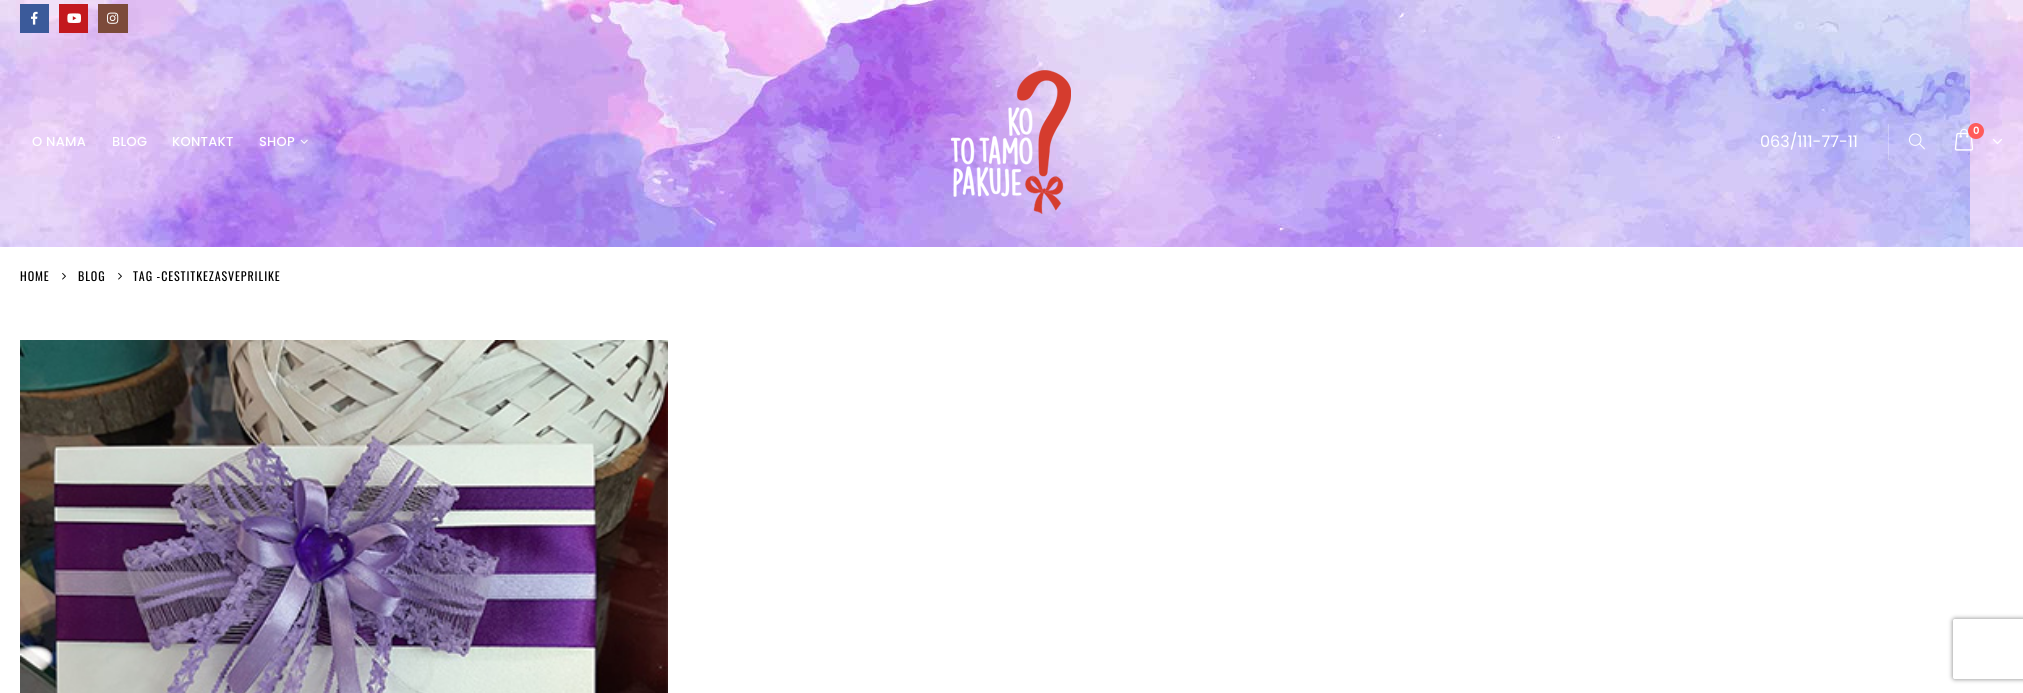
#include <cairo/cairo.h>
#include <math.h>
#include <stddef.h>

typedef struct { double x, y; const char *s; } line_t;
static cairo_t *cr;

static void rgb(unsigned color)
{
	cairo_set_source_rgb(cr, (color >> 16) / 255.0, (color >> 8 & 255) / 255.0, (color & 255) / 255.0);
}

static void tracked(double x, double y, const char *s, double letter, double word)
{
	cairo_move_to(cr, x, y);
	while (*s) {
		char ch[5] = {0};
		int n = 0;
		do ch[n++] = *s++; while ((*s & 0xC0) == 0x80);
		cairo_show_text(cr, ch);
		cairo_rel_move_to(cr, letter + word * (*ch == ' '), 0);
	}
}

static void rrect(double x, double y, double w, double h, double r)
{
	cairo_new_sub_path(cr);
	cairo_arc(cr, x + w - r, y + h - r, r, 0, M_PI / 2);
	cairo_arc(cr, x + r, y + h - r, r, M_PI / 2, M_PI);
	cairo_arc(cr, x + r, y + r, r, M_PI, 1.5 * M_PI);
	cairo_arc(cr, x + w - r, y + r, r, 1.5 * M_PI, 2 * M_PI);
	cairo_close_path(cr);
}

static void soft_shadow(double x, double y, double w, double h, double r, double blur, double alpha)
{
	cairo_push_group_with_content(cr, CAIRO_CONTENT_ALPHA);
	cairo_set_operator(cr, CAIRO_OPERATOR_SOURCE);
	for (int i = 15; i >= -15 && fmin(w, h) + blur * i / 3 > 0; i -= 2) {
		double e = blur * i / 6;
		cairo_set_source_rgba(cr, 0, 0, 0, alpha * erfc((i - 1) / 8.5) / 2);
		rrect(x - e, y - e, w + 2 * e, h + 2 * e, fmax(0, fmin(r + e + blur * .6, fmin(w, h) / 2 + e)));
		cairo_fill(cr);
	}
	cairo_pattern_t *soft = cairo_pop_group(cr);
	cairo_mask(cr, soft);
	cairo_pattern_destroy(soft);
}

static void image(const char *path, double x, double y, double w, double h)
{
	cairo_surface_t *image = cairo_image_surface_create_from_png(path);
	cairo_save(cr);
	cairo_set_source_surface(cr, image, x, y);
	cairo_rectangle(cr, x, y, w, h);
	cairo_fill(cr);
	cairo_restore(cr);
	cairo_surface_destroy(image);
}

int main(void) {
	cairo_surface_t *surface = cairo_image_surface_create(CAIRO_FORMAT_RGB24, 2023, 693);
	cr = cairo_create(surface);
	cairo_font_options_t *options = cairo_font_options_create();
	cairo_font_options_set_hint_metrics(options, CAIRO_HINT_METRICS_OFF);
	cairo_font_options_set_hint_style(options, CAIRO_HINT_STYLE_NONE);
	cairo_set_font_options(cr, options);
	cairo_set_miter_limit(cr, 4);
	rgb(0xffffff);
	cairo_paint(cr);
	image("img/1.png", 0, 0, 2023, 247);
	rgb(0x3b5a9a);
	cairo_rectangle(cr, 20, 4, 29, 29);
	cairo_fill(cr);
	image("img/2.png", 31, 11, 7, 14);
	rgb(0xc3191e);
	cairo_rectangle(cr, 59, 4, 29, 29);
	cairo_fill(cr);
	image("img/3.png", 67, 13, 14, 10);
	rgb(0x7c4a3a);
	cairo_rectangle(cr, 98, 4, 30, 29);
	cairo_fill(cr);
	image("img/4.png", 107, 12, 12, 12);
	image("img/5.png", 300, 139, 8, 5);
	image("img/6.png", 951, 70, 120, 144);
	image("img/7.png", 1954, 128, 20, 23);
	rgb(0xff5b5b);
	cairo_arc(cr, 1976, 131, 8, 0, 2 * M_PI);
	cairo_fill(cr);
	image("img/8.png", 1992, 138, 10, 7);
	cairo_set_source_rgba(cr, 1, 1, 1, 0.3);
	cairo_rectangle(cr, 1888, 124, 1, 36);
	cairo_fill(cr);
	image("img/9.png", 1909, 133, 16, 17);
	image("img/10.png", 62, 272, 4, 8);
	image("img/10.png", 118, 272, 4, 8);
	image("img/11.png", 20, 340, 648, 353);
	cairo_save(cr);
	cairo_set_fill_rule(cr, CAIRO_FILL_RULE_EVEN_ODD);
	cairo_new_path(cr);
	cairo_move_to(cr, 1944, 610);
	cairo_line_to(cr, 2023, 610);
	cairo_line_to(cr, 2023, 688);
	cairo_line_to(cr, 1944, 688);
	cairo_close_path(cr);
	cairo_move_to(cr, 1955, 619);
	cairo_line_to(cr, 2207, 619);
	cairo_curve_to(cr, 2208, 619, 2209, 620, 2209, 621);
	cairo_line_to(cr, 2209, 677);
	cairo_curve_to(cr, 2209, 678, 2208, 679, 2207, 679);
	cairo_line_to(cr, 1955, 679);
	cairo_curve_to(cr, 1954, 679, 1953, 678, 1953, 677);
	cairo_line_to(cr, 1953, 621);
	cairo_curve_to(cr, 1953, 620, 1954, 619, 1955, 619);
	cairo_close_path(cr);
	cairo_clip(cr);
	rgb(0x808080);
	soft_shadow(1953, 619, 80, 60, 2, 2.5, 1);
	cairo_restore(cr);
	cairo_select_font_face(cr, "Poppins Medium", CAIRO_FONT_SLANT_NORMAL, CAIRO_FONT_WEIGHT_NORMAL);
	cairo_set_font_size(cr, 13);
	rgb(0xffffff);
	{
		static const line_t items[] = {
			{32, 146, "O NAMA"},
			{112, 146, "BLOG"},
			{172, 146, "KONTAKT"},
			{259, 146, "SHOP"},
		};
		for (size_t i = 0; i < sizeof items / sizeof *items; i++) {
			tracked(items[i].x, items[i].y, items[i].s, 0.25, 0);
		}
	}
	cairo_select_font_face(cr, "Poppins SemiBold", CAIRO_FONT_SLANT_NORMAL, CAIRO_FONT_WEIGHT_NORMAL);
	cairo_set_font_size(cr, 10);
	cairo_move_to(cr, 1973, 134);
	cairo_show_text(cr, "0");
	cairo_select_font_face(cr, "Poppins", CAIRO_FONT_SLANT_NORMAL, CAIRO_FONT_WEIGHT_NORMAL);
	cairo_set_font_size(cr, 16);
	cairo_move_to(cr, 1760, 147);
	cairo_show_text(cr, "063/111-77-11");
	cairo_select_font_face(cr, "Oswald", CAIRO_FONT_SLANT_NORMAL, CAIRO_FONT_WEIGHT_NORMAL);
	cairo_set_font_size(cr, 12);
	rgb(0x000000);
	{
		static const line_t items[] = {
			{20, 281, "HOME"},
			{78, 281, "BLOG"},
			{133, 281, "TAG -CESTITKEZASVEPRILIKE"},
		};
		for (size_t i = 0; i < sizeof items / sizeof *items; i++) {
			tracked(items[i].x, items[i].y, items[i].s, 0.9, 0);
		}
	}
	cairo_surface_write_to_png(surface, "page.png");
	cairo_font_options_destroy(options);
	cairo_destroy(cr);
	cairo_surface_destroy(surface);
	return 0;
}
